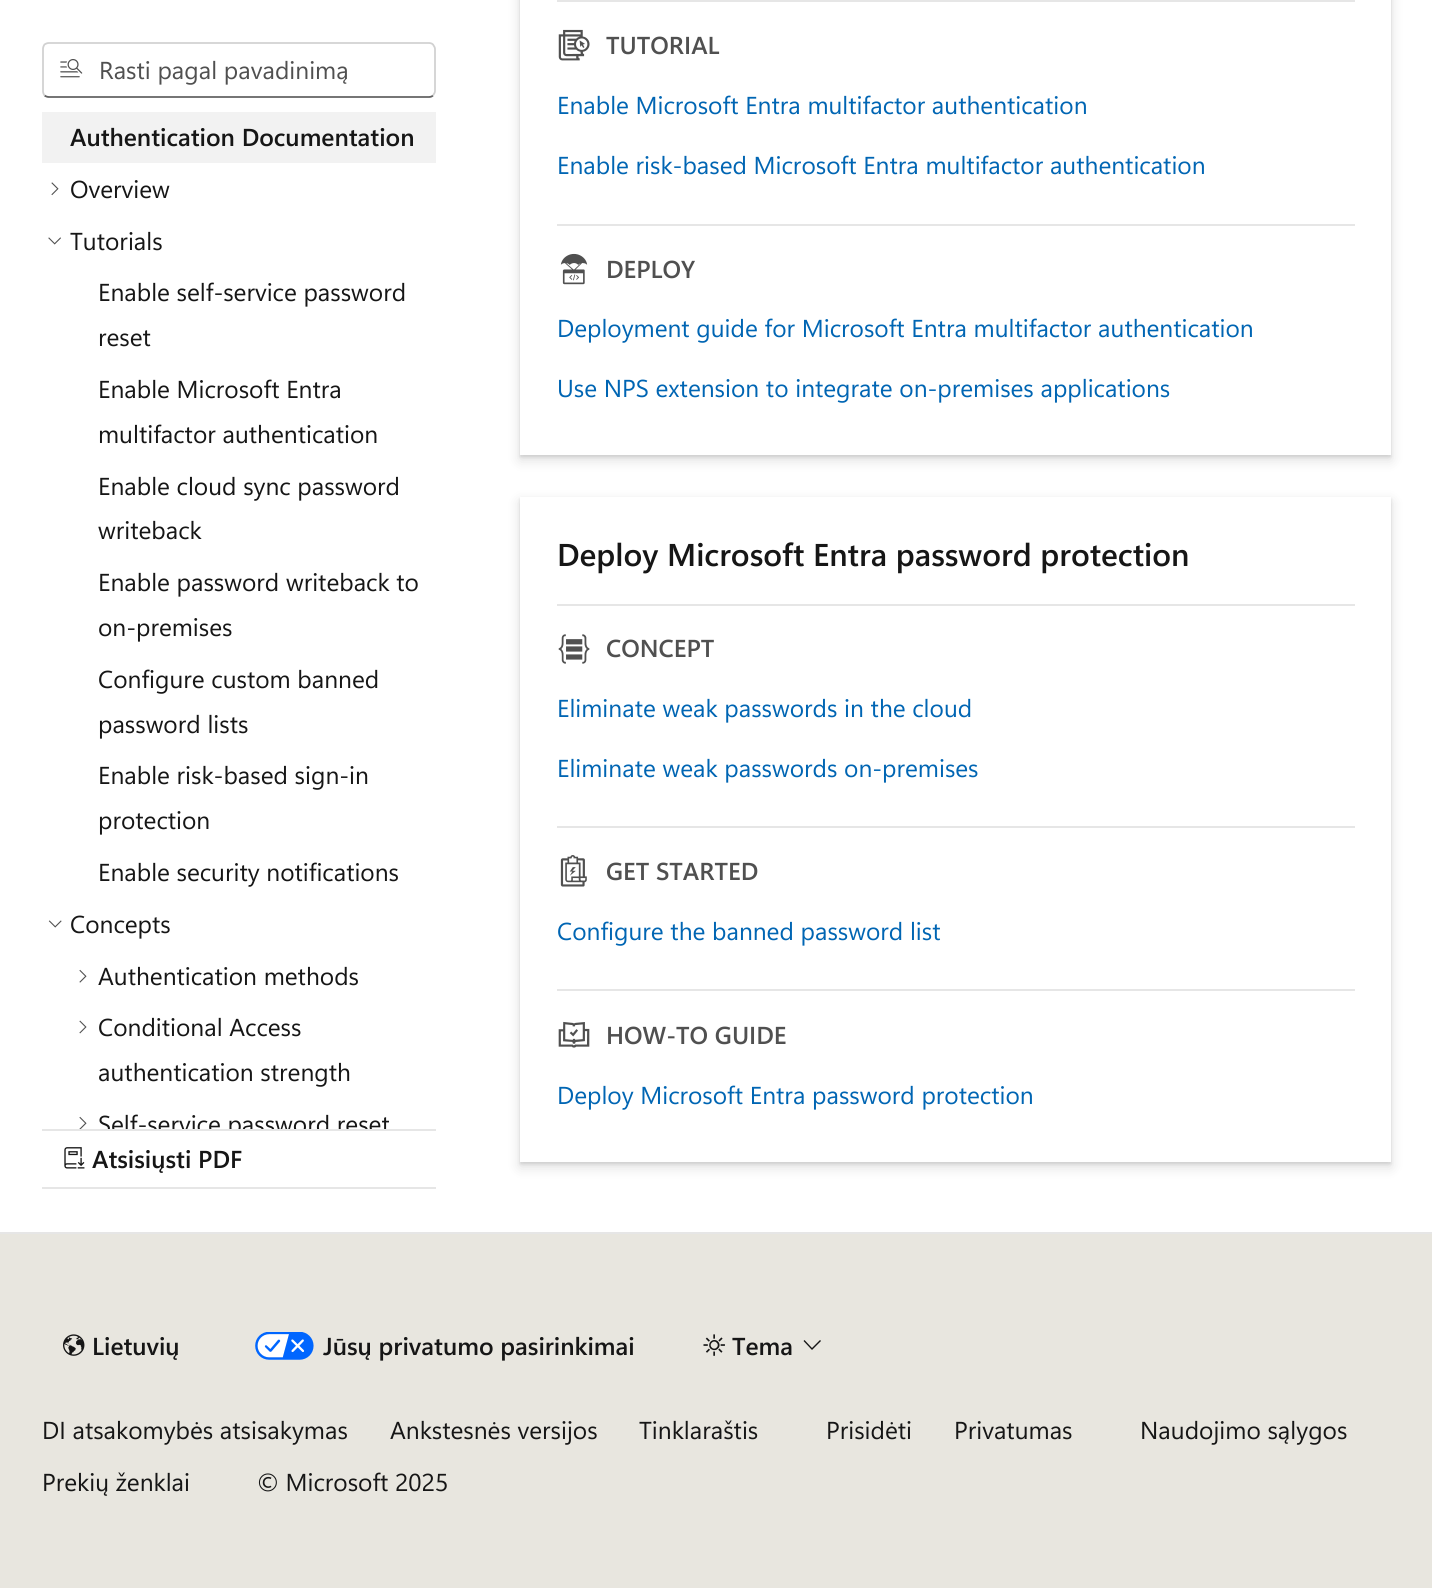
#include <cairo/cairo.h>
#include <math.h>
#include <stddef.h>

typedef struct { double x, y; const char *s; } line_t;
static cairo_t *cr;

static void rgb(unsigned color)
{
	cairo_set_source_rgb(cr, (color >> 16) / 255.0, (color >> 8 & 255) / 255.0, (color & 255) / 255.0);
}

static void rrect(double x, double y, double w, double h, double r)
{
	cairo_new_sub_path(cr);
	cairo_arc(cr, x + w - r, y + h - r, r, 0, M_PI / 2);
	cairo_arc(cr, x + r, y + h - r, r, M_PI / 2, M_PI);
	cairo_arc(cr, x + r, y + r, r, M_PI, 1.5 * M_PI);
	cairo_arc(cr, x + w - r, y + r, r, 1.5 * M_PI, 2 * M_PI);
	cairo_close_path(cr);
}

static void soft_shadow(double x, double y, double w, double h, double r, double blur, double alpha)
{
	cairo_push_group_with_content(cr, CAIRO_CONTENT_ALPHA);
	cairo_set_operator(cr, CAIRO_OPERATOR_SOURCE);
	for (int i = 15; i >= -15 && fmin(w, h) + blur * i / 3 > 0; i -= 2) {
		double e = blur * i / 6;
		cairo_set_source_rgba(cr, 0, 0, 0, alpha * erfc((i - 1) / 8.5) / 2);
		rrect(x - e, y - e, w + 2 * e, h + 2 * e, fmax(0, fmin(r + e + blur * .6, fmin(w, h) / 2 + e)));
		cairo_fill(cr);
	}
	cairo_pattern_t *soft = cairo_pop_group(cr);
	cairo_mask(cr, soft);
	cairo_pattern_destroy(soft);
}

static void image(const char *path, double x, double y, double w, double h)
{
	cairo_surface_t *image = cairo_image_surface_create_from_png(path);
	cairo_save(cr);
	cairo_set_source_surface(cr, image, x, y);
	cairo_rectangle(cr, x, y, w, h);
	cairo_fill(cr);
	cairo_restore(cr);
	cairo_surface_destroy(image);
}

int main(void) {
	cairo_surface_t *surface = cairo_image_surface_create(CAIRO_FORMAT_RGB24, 1432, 1588);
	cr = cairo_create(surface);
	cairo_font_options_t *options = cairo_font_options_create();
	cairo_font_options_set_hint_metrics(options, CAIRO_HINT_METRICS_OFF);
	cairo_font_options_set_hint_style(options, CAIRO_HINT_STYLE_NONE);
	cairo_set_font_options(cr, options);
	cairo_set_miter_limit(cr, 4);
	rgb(0xffffff);
	cairo_paint(cr);
	cairo_new_path(cr);
	cairo_move_to(cr, 433, 95.5);
	cairo_curve_to(cr, 432, 96.5, 430.5, 97, 429, 97);
	cairo_line_to(cr, 49, 97);
	cairo_curve_to(cr, 47.5, 97, 46, 96.5, 44.5, 95.5);
	rgb(0x616161);
	cairo_set_line_width(cr, 1.8);
	cairo_stroke(cr);
	cairo_new_path(cr);
	cairo_move_to(cr, 44.5, 95.5);
	cairo_curve_to(cr, 43.5, 94, 43, 92.5, 43, 91);
	cairo_line_to(cr, 43, 49);
	cairo_curve_to(cr, 43, 47.5, 43.5, 46, 44.5, 44.5);
	cairo_curve_to(cr, 46, 43.5, 47.5, 43, 49, 43);
	cairo_line_to(cr, 429, 43);
	cairo_curve_to(cr, 430.5, 43, 432, 43.5, 433, 44.5);
	cairo_curve_to(cr, 434, 46, 435, 47.5, 435, 49);
	cairo_line_to(cr, 435, 91);
	cairo_curve_to(cr, 435, 92.5, 434, 94, 433, 95.5);
	rgb(0xd1d1d1);
	cairo_stroke(cr);
	image("img/1.png", 60, 59, 23, 19);
	rgb(0xf2f2f2);
	cairo_rectangle(cr, 42, 112, 394, 51);
	cairo_fill(cr);
	image("img/2.png", 51, 182, 8, 14);
	image("img/3.png", 48, 237, 13, 8);
	image("img/4.png", 48, 920, 14, 8);
	image("img/5.png", 79, 969, 8, 14);
	image("img/6.png", 79, 1020, 8, 14);
	image("img/7.png", 79, 1116, 8, 13);
	rgb(0xe6e6e6);
	cairo_rectangle(cr, 42, 1129, 394, 2);
	cairo_fill(cr);
	cairo_rectangle(cr, 42, 1187, 394, 2);
	cairo_fill(cr);
	image("img/8.png", 64, 1147, 21, 22);
	cairo_save(cr);
	cairo_set_fill_rule(cr, CAIRO_FILL_RULE_EVEN_ODD);
	cairo_new_path(cr);
	cairo_move_to(cr, 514, 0);
	cairo_line_to(cr, 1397, 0);
	cairo_line_to(cr, 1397, 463);
	cairo_line_to(cr, 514, 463);
	cairo_close_path(cr);
	cairo_move_to(cr, 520, -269);
	cairo_line_to(cr, 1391, -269);
	cairo_line_to(cr, 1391, 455);
	cairo_line_to(cr, 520, 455);
	cairo_close_path(cr);
	cairo_clip(cr);
	rgb(0x000000);
	soft_shadow(520, -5, 871, 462, 0, 1.5, 0.11);
	cairo_restore(cr);
	cairo_save(cr);
	cairo_set_fill_rule(cr, CAIRO_FILL_RULE_EVEN_ODD);
	cairo_new_path(cr);
	cairo_move_to(cr, 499, 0);
	cairo_line_to(cr, 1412, 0);
	cairo_line_to(cr, 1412, 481);
	cairo_line_to(cr, 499, 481);
	cairo_close_path(cr);
	cairo_move_to(cr, 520, -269);
	cairo_line_to(cr, 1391, -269);
	cairo_line_to(cr, 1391, 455);
	cairo_line_to(cr, 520, 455);
	cairo_close_path(cr);
	cairo_clip(cr);
	rgb(0x000000);
	soft_shadow(520, -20, 871, 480, 0, 6.5, 0.13);
	cairo_restore(cr);
	cairo_rectangle(cr, 557, 0, 798, 2);
	cairo_fill(cr);
	image("img/9.png", 558, 29, 32, 32);
	cairo_rectangle(cr, 557, 224, 798, 2);
	cairo_fill(cr);
	image("img/10.png", 560, 253, 28, 32);
	cairo_save(cr);
	cairo_set_fill_rule(cr, CAIRO_FILL_RULE_EVEN_ODD);
	cairo_new_path(cr);
	cairo_move_to(cr, 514, 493);
	cairo_line_to(cr, 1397, 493);
	cairo_line_to(cr, 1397, 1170);
	cairo_line_to(cr, 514, 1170);
	cairo_close_path(cr);
	cairo_move_to(cr, 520, 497);
	cairo_line_to(cr, 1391, 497);
	cairo_line_to(cr, 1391, 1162);
	cairo_line_to(cr, 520, 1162);
	cairo_close_path(cr);
	cairo_clip(cr);
	rgb(0x000000);
	soft_shadow(520, 499, 871, 665, 0, 1.5, 0.11);
	cairo_restore(cr);
	cairo_save(cr);
	cairo_set_fill_rule(cr, CAIRO_FILL_RULE_EVEN_ODD);
	cairo_new_path(cr);
	cairo_move_to(cr, 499, 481);
	cairo_line_to(cr, 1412, 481);
	cairo_line_to(cr, 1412, 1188);
	cairo_line_to(cr, 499, 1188);
	cairo_close_path(cr);
	cairo_move_to(cr, 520, 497);
	cairo_line_to(cr, 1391, 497);
	cairo_line_to(cr, 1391, 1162);
	cairo_line_to(cr, 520, 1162);
	cairo_close_path(cr);
	cairo_clip(cr);
	rgb(0x000000);
	soft_shadow(520, 502, 871, 665, 0, 6.5, 0.13);
	cairo_restore(cr);
	cairo_rectangle(cr, 557, 604, 798, 2);
	cairo_fill(cr);
	image("img/11.png", 558, 634, 32, 30);
	cairo_rectangle(cr, 557, 826, 798, 2);
	cairo_fill(cr);
	image("img/12.png", 560, 855, 27, 32);
	cairo_rectangle(cr, 557, 989, 798, 2);
	cairo_fill(cr);
	image("img/13.png", 558, 1021, 32, 27);
	rgb(0xe8e6df);
	cairo_rectangle(cr, 0, 1234, 1432, 354);
	cairo_fill(cr);
	rgb(0xe6e6e6);
	cairo_rectangle(cr, 0, 1232, 1432, 2);
	cairo_fill(cr);
	image("img/14.png", 63, 1334, 22, 22);
	image("img/15.png", 255, 1332, 59, 28);
	image("img/16.png", 703, 1334, 22, 22);
	rgb(0x161616);
	cairo_new_path(cr);
	cairo_move_to(cr, 812, 1350);
	cairo_line_to(cr, 803.5, 1341);
	cairo_line_to(cr, 804.5, 1340);
	cairo_line_to(cr, 812, 1348);
	cairo_line_to(cr, 820, 1340);
	cairo_line_to(cr, 821, 1341);
	cairo_close_path(cr);
	cairo_fill(cr);
	cairo_select_font_face(cr, "Segoe UI", CAIRO_FONT_SLANT_NORMAL, CAIRO_FONT_WEIGHT_NORMAL);
	cairo_set_font_size(cr, 24.5);
	rgb(0x505050);
	cairo_move_to(cr, 99, 79);
	cairo_show_text(cr, "Rasti pagal pavadinimą");
	cairo_select_font_face(cr, "Segoe UI SemiBold", CAIRO_FONT_SLANT_NORMAL, CAIRO_FONT_WEIGHT_NORMAL);
	rgb(0x161616);
	cairo_move_to(cr, 70, 146);
	cairo_show_text(cr, "Authentication Documentation");
	cairo_select_font_face(cr, "Segoe UI", CAIRO_FONT_SLANT_NORMAL, CAIRO_FONT_WEIGHT_NORMAL);
	{
		static const line_t items[] = {
			{70, 198, "Overview"},
			{70, 250, "Tutorials"},
			{98, 301, "Enable self-service password"},
			{98, 346, "reset"},
			{98, 398, "Enable Microsoft Entra"},
			{98, 443, "multifactor authentication"},
			{98, 495, "Enable cloud sync password"},
			{98, 539, "writeback"},
			{98, 591, "Enable password writeback to"},
			{98, 636, "on-premises"},
			{98, 688, "Configure custom banned"},
			{98, 733, "password lists"},
			{98, 784, "Enable risk-based sign-in"},
			{98, 829, "protection"},
			{98, 881, "Enable security notifications"},
			{70, 933, "Concepts"},
			{98, 985, "Authentication methods"},
			{98, 1036, "Conditional Access"},
			{98, 1081, "authentication strength"},
		};
		for (size_t i = 0; i < sizeof items / sizeof *items; i++) {
			cairo_move_to(cr, items[i].x, items[i].y);
			cairo_show_text(cr, items[i].s);
		}
	}
	cairo_save(cr);
	cairo_rectangle(cr, 42, 112, 394, 1017);
	cairo_clip(cr);
	cairo_move_to(cr, 98, 1133);
	cairo_show_text(cr, "Self-service password reset");
	cairo_restore(cr);
	cairo_select_font_face(cr, "Segoe UI SemiBold", CAIRO_FONT_SLANT_NORMAL, CAIRO_FONT_WEIGHT_NORMAL);
	cairo_move_to(cr, 92, 1168);
	cairo_show_text(cr, "Atsisiųsti PDF");
	rgb(0x505050);
	cairo_move_to(cr, 606, 54);
	cairo_show_text(cr, "TUTORIAL");
	cairo_select_font_face(cr, "Segoe UI", CAIRO_FONT_SLANT_NORMAL, CAIRO_FONT_WEIGHT_NORMAL);
	rgb(0x0065b3);
	cairo_move_to(cr, 557, 114);
	cairo_show_text(cr, "Enable Microsoft Entra multifactor authentication");
	cairo_move_to(cr, 557, 174);
	cairo_show_text(cr, "Enable risk-based Microsoft Entra multifactor authentication");
	cairo_select_font_face(cr, "Segoe UI SemiBold", CAIRO_FONT_SLANT_NORMAL, CAIRO_FONT_WEIGHT_NORMAL);
	rgb(0x505050);
	cairo_move_to(cr, 606, 278);
	cairo_show_text(cr, "DEPLOY");
	cairo_select_font_face(cr, "Segoe UI", CAIRO_FONT_SLANT_NORMAL, CAIRO_FONT_WEIGHT_NORMAL);
	rgb(0x0065b3);
	cairo_move_to(cr, 557, 337);
	cairo_show_text(cr, "Deployment guide for Microsoft Entra multifactor authentication");
	cairo_move_to(cr, 557, 397);
	cairo_show_text(cr, "Use NPS extension to integrate on-premises applications");
	cairo_select_font_face(cr, "Segoe UI SemiBold", CAIRO_FONT_SLANT_NORMAL, CAIRO_FONT_WEIGHT_NORMAL);
	cairo_set_font_size(cr, 31.5);
	rgb(0x161616);
	cairo_move_to(cr, 557, 566);
	cairo_show_text(cr, "Deploy Microsoft Entra password protection");
	cairo_set_font_size(cr, 24.5);
	rgb(0x505050);
	cairo_move_to(cr, 606, 657);
	cairo_show_text(cr, "CONCEPT");
	cairo_select_font_face(cr, "Segoe UI", CAIRO_FONT_SLANT_NORMAL, CAIRO_FONT_WEIGHT_NORMAL);
	rgb(0x0065b3);
	cairo_move_to(cr, 557, 717);
	cairo_show_text(cr, "Eliminate weak passwords in the cloud");
	cairo_move_to(cr, 557, 777);
	cairo_show_text(cr, "Eliminate weak passwords on-premises");
	cairo_select_font_face(cr, "Segoe UI SemiBold", CAIRO_FONT_SLANT_NORMAL, CAIRO_FONT_WEIGHT_NORMAL);
	rgb(0x505050);
	cairo_move_to(cr, 606, 880);
	cairo_show_text(cr, "GET STARTED");
	cairo_select_font_face(cr, "Segoe UI", CAIRO_FONT_SLANT_NORMAL, CAIRO_FONT_WEIGHT_NORMAL);
	rgb(0x0065b3);
	cairo_move_to(cr, 557, 940);
	cairo_show_text(cr, "Configure the banned password list");
	cairo_select_font_face(cr, "Segoe UI SemiBold", CAIRO_FONT_SLANT_NORMAL, CAIRO_FONT_WEIGHT_NORMAL);
	rgb(0x505050);
	cairo_move_to(cr, 606, 1044);
	cairo_show_text(cr, "HOW-TO GUIDE");
	cairo_select_font_face(cr, "Segoe UI", CAIRO_FONT_SLANT_NORMAL, CAIRO_FONT_WEIGHT_NORMAL);
	rgb(0x0065b3);
	cairo_move_to(cr, 557, 1104);
	cairo_show_text(cr, "Deploy Microsoft Entra password protection");
	cairo_select_font_face(cr, "Segoe UI SemiBold", CAIRO_FONT_SLANT_NORMAL, CAIRO_FONT_WEIGHT_NORMAL);
	rgb(0x161616);
	{
		static const line_t items[] = {
			{92, 1355, "Lietuvių"},
			{323, 1355, "Jūsų privatumo pasirinkimai"},
			{732, 1355, "Tema"},
		};
		for (size_t i = 0; i < sizeof items / sizeof *items; i++) {
			cairo_move_to(cr, items[i].x, items[i].y);
			cairo_show_text(cr, items[i].s);
		}
	}
	cairo_select_font_face(cr, "Segoe UI", CAIRO_FONT_SLANT_NORMAL, CAIRO_FONT_WEIGHT_NORMAL);
	{
		static const line_t items[] = {
			{42, 1439, "DI atsakomybės atsisakymas"},
			{390, 1439, "Ankstesnės versijos"},
			{639, 1439, "Tinklaraštis"},
			{826, 1439, "Prisidėti"},
			{954, 1439, "Privatumas"},
			{1140, 1439, "Naudojimo sąlygos"},
			{42, 1491, "Prekių ženklai"},
			{257, 1491, "© Microsoft 2025"},
		};
		for (size_t i = 0; i < sizeof items / sizeof *items; i++) {
			cairo_move_to(cr, items[i].x, items[i].y);
			cairo_show_text(cr, items[i].s);
		}
	}
	cairo_surface_write_to_png(surface, "page.png");
	cairo_font_options_destroy(options);
	cairo_destroy(cr);
	cairo_surface_destroy(surface);
	return 0;
}
